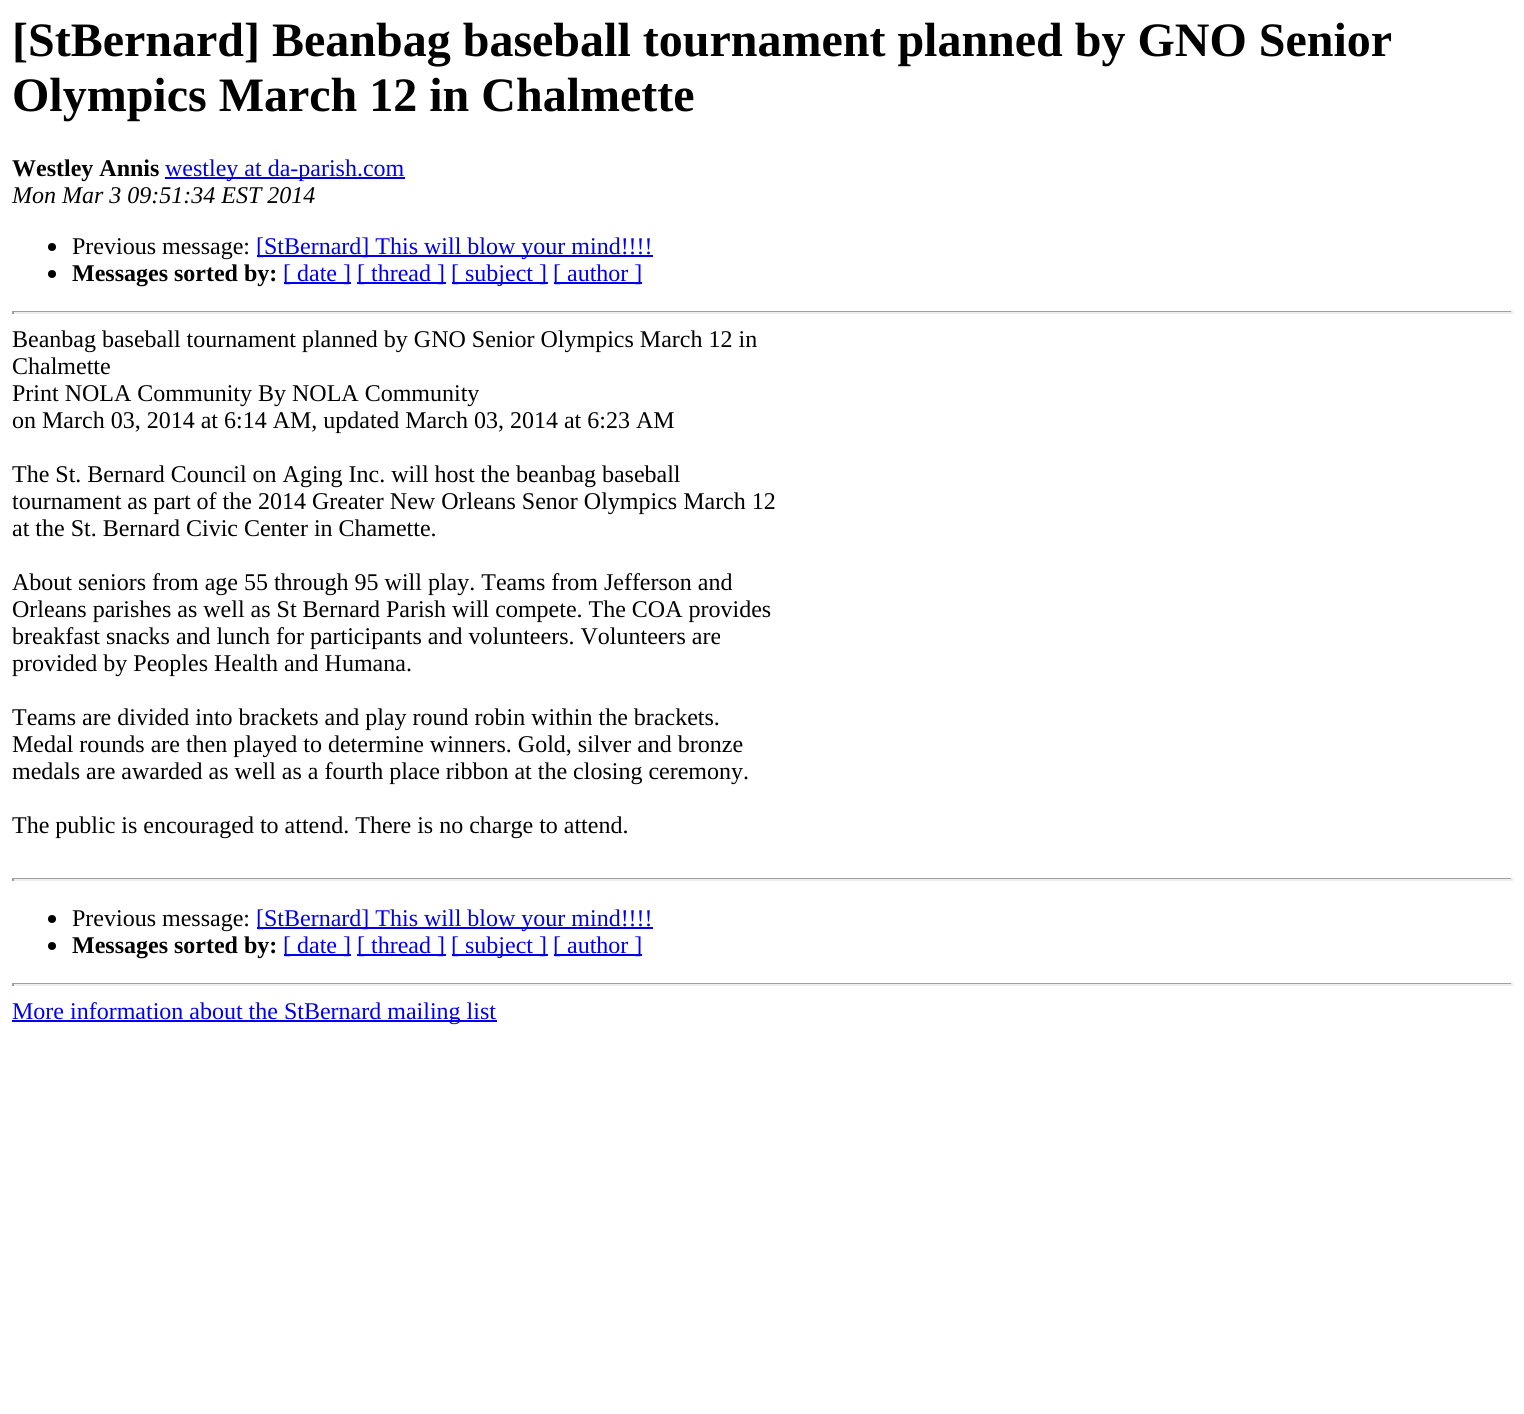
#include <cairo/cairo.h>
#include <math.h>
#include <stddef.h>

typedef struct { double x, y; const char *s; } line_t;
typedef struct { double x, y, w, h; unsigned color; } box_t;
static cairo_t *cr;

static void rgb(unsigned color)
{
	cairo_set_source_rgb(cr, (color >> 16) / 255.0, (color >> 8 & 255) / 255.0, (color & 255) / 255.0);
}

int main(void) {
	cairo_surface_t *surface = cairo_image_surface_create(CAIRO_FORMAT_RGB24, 1524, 1414);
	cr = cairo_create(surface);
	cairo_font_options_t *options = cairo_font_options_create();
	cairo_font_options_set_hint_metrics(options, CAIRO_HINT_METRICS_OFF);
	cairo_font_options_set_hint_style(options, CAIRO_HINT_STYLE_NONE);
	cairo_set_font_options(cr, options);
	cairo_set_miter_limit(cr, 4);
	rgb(0xffffff);
	cairo_paint(cr);
	rgb(0x0000ee);
	cairo_rectangle(cr, 165, 177, 240, 2);
	cairo_fill(cr);
	rgb(0x000000);
	cairo_arc(cr, 52, 247, 4, 0, 2 * M_PI);
	cairo_fill(cr);
	rgb(0x0000ee);
	cairo_rectangle(cr, 257, 255, 396, 2);
	cairo_fill(cr);
	rgb(0x000000);
	cairo_arc(cr, 52, 274, 4, 0, 2 * M_PI);
	cairo_fill(cr);
	{
		static const box_t items[] = {
			{284, 282, 67, 2, 0x0000ee},
			{357, 282, 89, 2, 0x0000ee},
			{452, 282, 96, 2, 0x0000ee},
			{554, 282, 88, 2, 0x0000ee},
			{12, 311, 1500, 1, 0x9f9f9f},
			{1511, 311, 2, 3, 0xeeeeee},
			{12, 312, 1500, 2, 0xeeeeee},
			{12, 311, 2, 3, 0x9f9f9f},
			{12, 878, 1500, 1, 0x9f9f9f},
			{1511, 878, 2, 3, 0xeeeeee},
			{12, 879, 1500, 2, 0xeeeeee},
			{12, 878, 2, 3, 0x9f9f9f},
		};
		for (size_t i = 0; i < sizeof items / sizeof *items; i++) {
			rgb(items[i].color);
			cairo_rectangle(cr, items[i].x, items[i].y, items[i].w, items[i].h);
			cairo_fill(cr);
		}
	}
	rgb(0x000000);
	cairo_arc(cr, 52, 919, 4, 0, 2 * M_PI);
	cairo_fill(cr);
	rgb(0x0000ee);
	cairo_rectangle(cr, 257, 927, 396, 2);
	cairo_fill(cr);
	rgb(0x000000);
	cairo_arc(cr, 52, 946, 4, 0, 2 * M_PI);
	cairo_fill(cr);
	{
		static const box_t items[] = {
			{284, 954, 67, 2, 0x0000ee},
			{357, 954, 89, 2, 0x0000ee},
			{452, 954, 96, 2, 0x0000ee},
			{554, 954, 88, 2, 0x0000ee},
			{12, 983, 1500, 1, 0x9f9f9f},
			{1511, 983, 2, 3, 0xeeeeee},
			{12, 984, 1500, 2, 0xeeeeee},
			{12, 983, 2, 3, 0x9f9f9f},
			{12, 1020, 485, 2, 0x0000ee},
		};
		for (size_t i = 0; i < sizeof items / sizeof *items; i++) {
			rgb(items[i].color);
			cairo_rectangle(cr, items[i].x, items[i].y, items[i].w, items[i].h);
			cairo_fill(cr);
		}
	}
	cairo_select_font_face(cr, "Liberation Serif", CAIRO_FONT_SLANT_NORMAL, CAIRO_FONT_WEIGHT_BOLD);
	cairo_set_font_size(cr, 48);
	rgb(0x000000);
	cairo_move_to(cr, 12, 56);
	cairo_show_text(cr, "[StBernard] Beanbag baseball tournament planned by GNO Senior");
	cairo_move_to(cr, 12, 111);
	cairo_show_text(cr, "Olympics March 12 in Chalmette");
	cairo_set_font_size(cr, 24);
	cairo_move_to(cr, 12, 176);
	cairo_show_text(cr, "Westley Annis");
	cairo_select_font_face(cr, "Liberation Serif", CAIRO_FONT_SLANT_NORMAL, CAIRO_FONT_WEIGHT_NORMAL);
	rgb(0x0000ee);
	cairo_move_to(cr, 165, 176);
	cairo_show_text(cr, "westley at da-parish.com");
	cairo_select_font_face(cr, "Liberation Serif", CAIRO_FONT_SLANT_ITALIC, CAIRO_FONT_WEIGHT_NORMAL);
	rgb(0x000000);
	cairo_move_to(cr, 12, 203);
	cairo_show_text(cr, "Mon Mar 3 09:51:34 EST 2014");
	cairo_select_font_face(cr, "Liberation Serif", CAIRO_FONT_SLANT_NORMAL, CAIRO_FONT_WEIGHT_NORMAL);
	cairo_move_to(cr, 72, 254);
	cairo_show_text(cr, "Previous message:");
	rgb(0x0000ee);
	cairo_move_to(cr, 256, 254);
	cairo_show_text(cr, "[StBernard] This will blow your mind!!!!");
	cairo_select_font_face(cr, "Liberation Serif", CAIRO_FONT_SLANT_NORMAL, CAIRO_FONT_WEIGHT_BOLD);
	rgb(0x000000);
	cairo_move_to(cr, 72, 281);
	cairo_show_text(cr, "Messages sorted by:");
	cairo_select_font_face(cr, "Liberation Serif", CAIRO_FONT_SLANT_NORMAL, CAIRO_FONT_WEIGHT_NORMAL);
	rgb(0x0000ee);
	{
		static const line_t items[] = {
			{283, 281, "[ date ]"},
			{357, 281, "[ thread ]"},
			{451, 281, "[ subject ]"},
			{553, 281, "[ author ]"},
		};
		for (size_t i = 0; i < sizeof items / sizeof *items; i++) {
			cairo_move_to(cr, items[i].x, items[i].y);
			cairo_show_text(cr, items[i].s);
		}
	}
	rgb(0x000000);
	{
		static const line_t items[] = {
			{12, 347, "Beanbag baseball tournament planned by GNO Senior Olympics March 12 in"},
			{12, 374, "Chalmette"},
			{12, 401, "Print NOLA Community By NOLA Community"},
			{12, 428, "on March 03, 2014 at 6:14 AM, updated March 03, 2014 at 6:23 AM"},
			{12, 482, "The St. Bernard Council on Aging Inc. will host the beanbag baseball"},
			{12, 509, "tournament as part of the 2014 Greater New Orleans Senor Olympics March 12"},
			{12, 536, "at the St. Bernard Civic Center in Chamette."},
			{12, 590, "About seniors from age 55 through 95 will play. Teams from Jefferson and"},
			{12, 617, "Orleans parishes as well as St Bernard Parish will compete. The COA provides"},
			{12, 644, "breakfast snacks and lunch for participants and volunteers. Volunteers are"},
			{12, 671, "provided by Peoples Health and Humana."},
			{12, 725, "Teams are divided into brackets and play round robin within the brackets."},
			{12, 752, "Medal rounds are then played to determine winners. Gold, silver and bronze"},
			{12, 779, "medals are awarded as well as a fourth place ribbon at the closing ceremony."},
			{12, 833, "The public is encouraged to attend. There is no charge to attend."},
			{72, 926, "Previous message:"},
		};
		for (size_t i = 0; i < sizeof items / sizeof *items; i++) {
			cairo_move_to(cr, items[i].x, items[i].y);
			cairo_show_text(cr, items[i].s);
		}
	}
	rgb(0x0000ee);
	cairo_move_to(cr, 256, 926);
	cairo_show_text(cr, "[StBernard] This will blow your mind!!!!");
	cairo_select_font_face(cr, "Liberation Serif", CAIRO_FONT_SLANT_NORMAL, CAIRO_FONT_WEIGHT_BOLD);
	rgb(0x000000);
	cairo_move_to(cr, 72, 953);
	cairo_show_text(cr, "Messages sorted by:");
	cairo_select_font_face(cr, "Liberation Serif", CAIRO_FONT_SLANT_NORMAL, CAIRO_FONT_WEIGHT_NORMAL);
	rgb(0x0000ee);
	{
		static const line_t items[] = {
			{283, 953, "[ date ]"},
			{357, 953, "[ thread ]"},
			{451, 953, "[ subject ]"},
			{553, 953, "[ author ]"},
			{12, 1019, "More information about the StBernard mailing list"},
		};
		for (size_t i = 0; i < sizeof items / sizeof *items; i++) {
			cairo_move_to(cr, items[i].x, items[i].y);
			cairo_show_text(cr, items[i].s);
		}
	}
	cairo_surface_write_to_png(surface, "page.png");
	cairo_font_options_destroy(options);
	cairo_destroy(cr);
	cairo_surface_destroy(surface);
	return 0;
}
